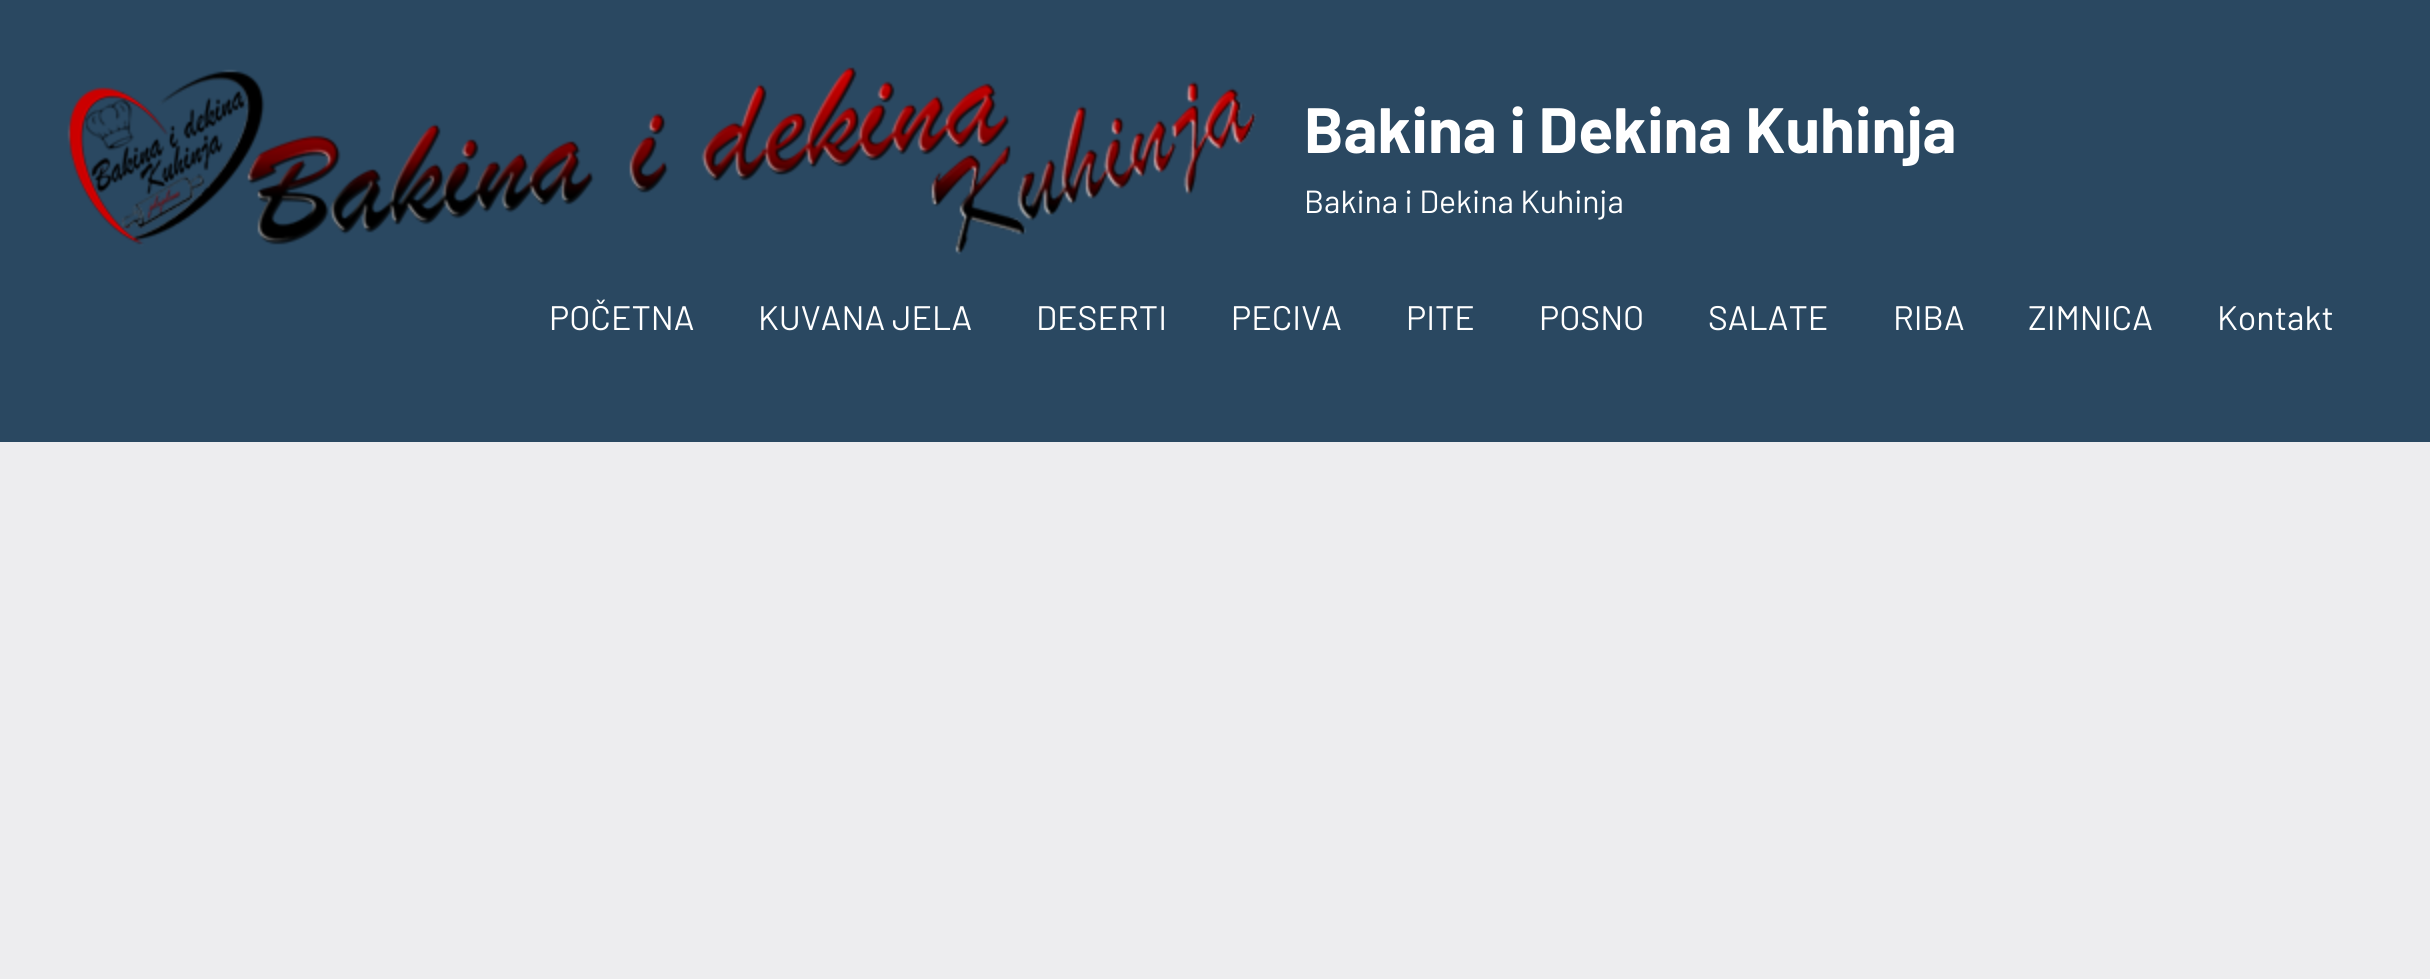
#include <cairo/cairo.h>
#include <math.h>
#include <stddef.h>

typedef struct { double x, y; const char *s; } line_t;
static cairo_t *cr;

static void rgb(unsigned color)
{
	cairo_set_source_rgb(cr, (color >> 16) / 255.0, (color >> 8 & 255) / 255.0, (color & 255) / 255.0);
}

static void image(const char *path, double x, double y, double w, double h)
{
	cairo_surface_t *image = cairo_image_surface_create_from_png(path);
	cairo_save(cr);
	cairo_set_source_surface(cr, image, x, y);
	cairo_rectangle(cr, x, y, w, h);
	cairo_fill(cr);
	cairo_restore(cr);
	cairo_surface_destroy(image);
}

int main(void) {
	cairo_surface_t *surface = cairo_image_surface_create(CAIRO_FORMAT_RGB24, 2430, 979);
	cr = cairo_create(surface);
	cairo_font_options_t *options = cairo_font_options_create();
	cairo_font_options_set_hint_metrics(options, CAIRO_HINT_METRICS_OFF);
	cairo_font_options_set_hint_style(options, CAIRO_HINT_STYLE_NONE);
	cairo_set_font_options(cr, options);
	cairo_set_miter_limit(cr, 4);
	rgb(0xededef);
	cairo_paint(cr);
	rgb(0x2a4861);
	cairo_rectangle(cr, 0, 0, 2430, 442);
	cairo_fill(cr);
	image("img/1.png", 67, 67, 1190, 188);
	cairo_select_font_face(cr, "Barlow", CAIRO_FONT_SLANT_NORMAL, CAIRO_FONT_WEIGHT_BOLD);
	cairo_set_font_size(cr, 64);
	rgb(0xffffff);
	cairo_move_to(cr, 1304, 153);
	cairo_show_text(cr, "Bakina i Dekina Kuhinja");
	cairo_select_font_face(cr, "Barlow", CAIRO_FONT_SLANT_NORMAL, CAIRO_FONT_WEIGHT_NORMAL);
	cairo_set_font_size(cr, 32);
	cairo_move_to(cr, 1304, 213);
	cairo_show_text(cr, "Bakina i Dekina Kuhinja");
	cairo_set_font_size(cr, 34);
	{
		static const line_t items[] = {
			{549, 330, "POČETNA"},
			{758, 330, "KUVANA JELA"},
			{1036, 330, "DESERTI"},
			{1231, 330, "PECIVA"},
			{1406, 330, "PITE"},
			{1539, 330, "POSNO"},
			{1708, 330, "SALATE"},
			{1893, 330, "RIBA"},
			{2028, 330, "ZIMNICA"},
			{2217, 330, "Kontakt"},
		};
		for (size_t i = 0; i < sizeof items / sizeof *items; i++) {
			cairo_move_to(cr, items[i].x, items[i].y);
			cairo_show_text(cr, items[i].s);
		}
	}
	cairo_surface_write_to_png(surface, "page.png");
	cairo_font_options_destroy(options);
	cairo_destroy(cr);
	cairo_surface_destroy(surface);
	return 0;
}
